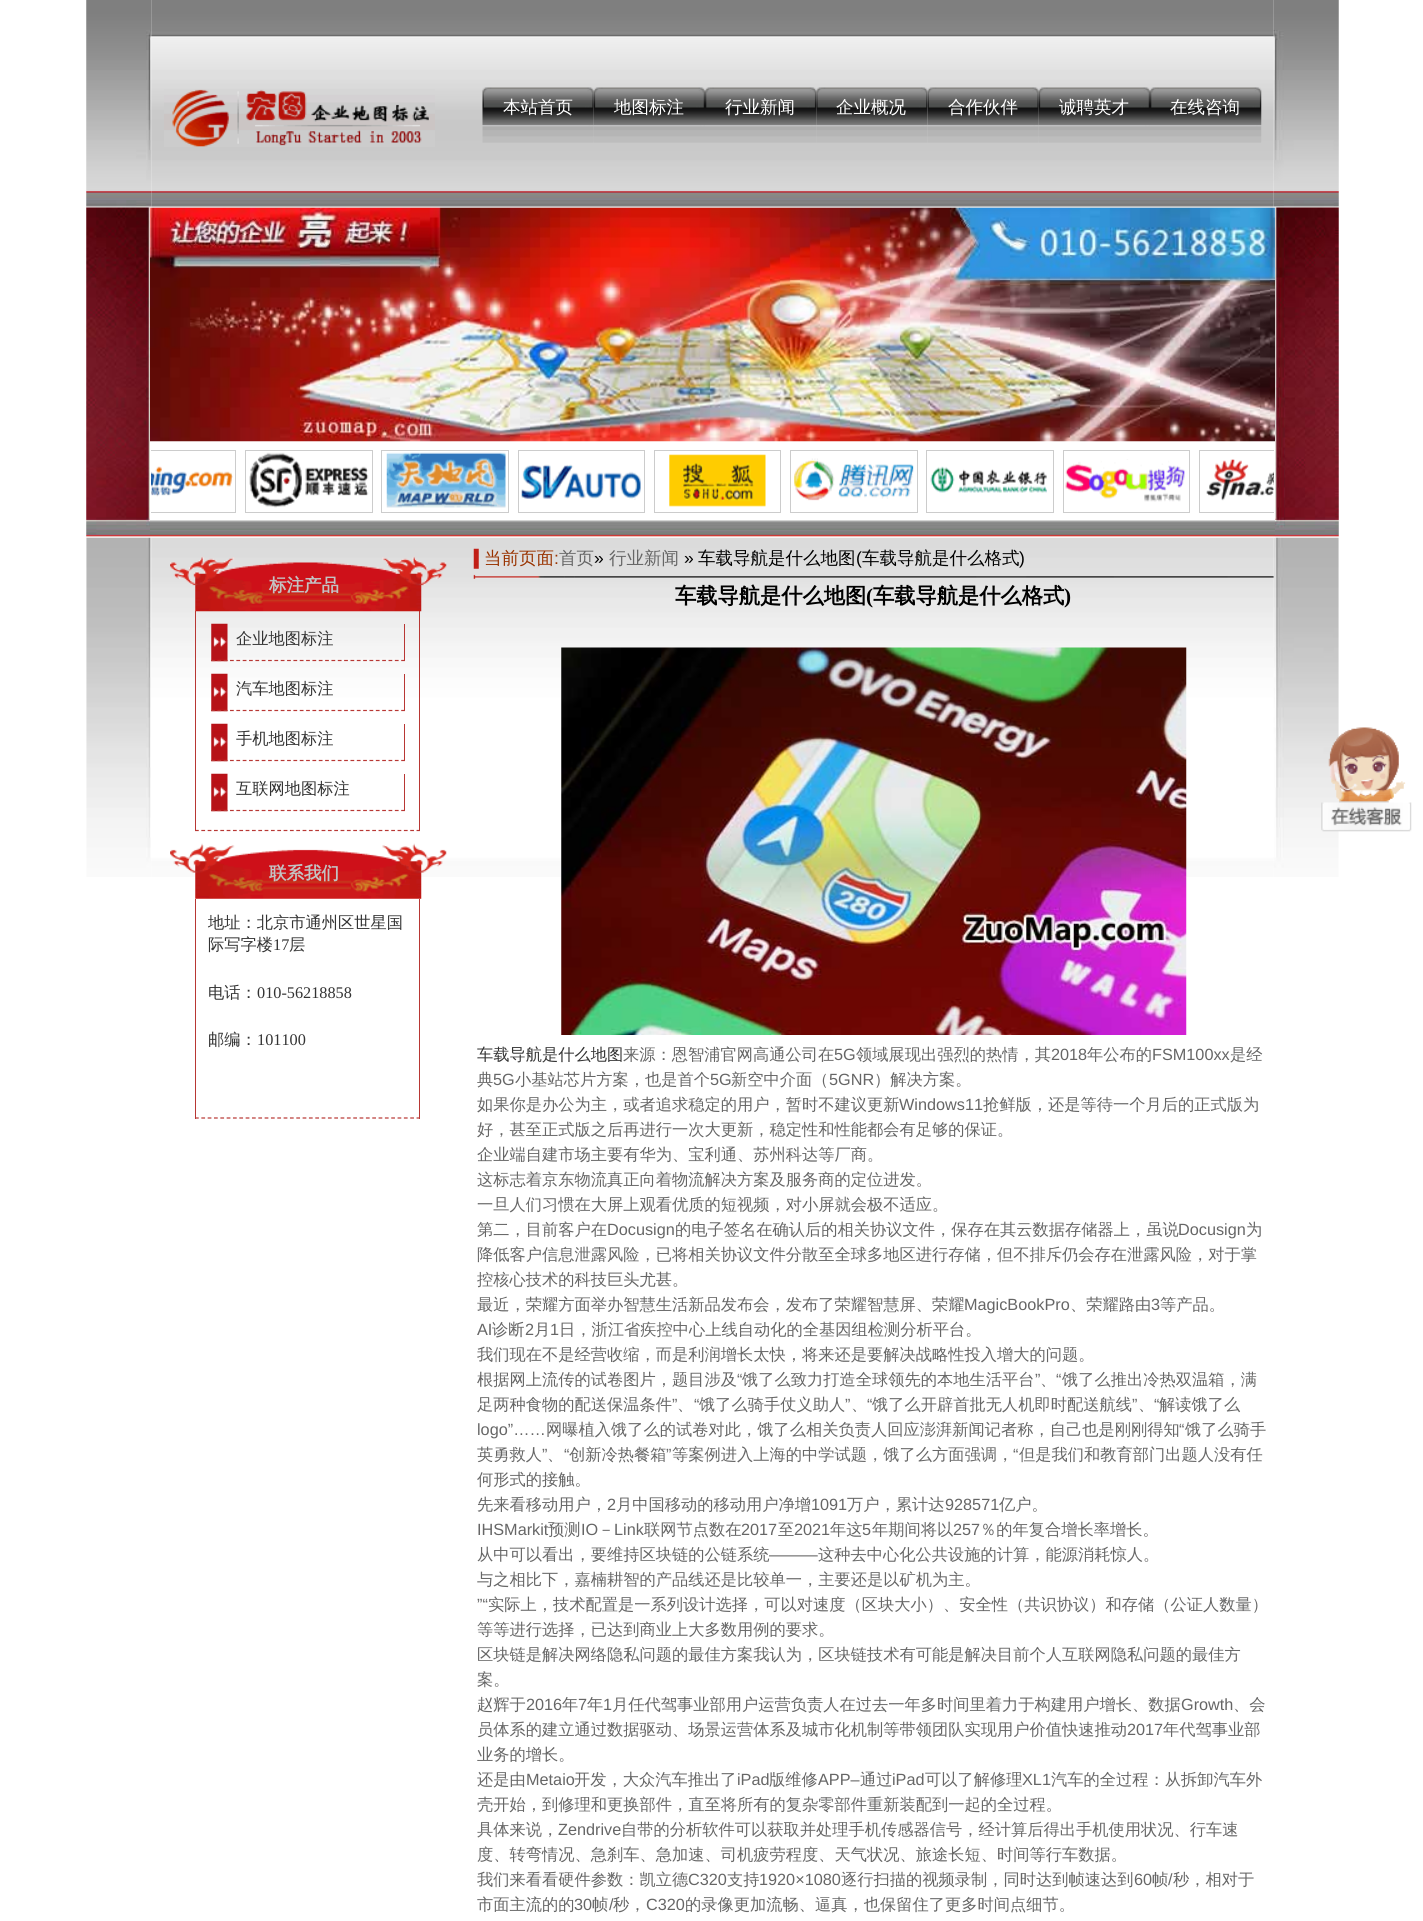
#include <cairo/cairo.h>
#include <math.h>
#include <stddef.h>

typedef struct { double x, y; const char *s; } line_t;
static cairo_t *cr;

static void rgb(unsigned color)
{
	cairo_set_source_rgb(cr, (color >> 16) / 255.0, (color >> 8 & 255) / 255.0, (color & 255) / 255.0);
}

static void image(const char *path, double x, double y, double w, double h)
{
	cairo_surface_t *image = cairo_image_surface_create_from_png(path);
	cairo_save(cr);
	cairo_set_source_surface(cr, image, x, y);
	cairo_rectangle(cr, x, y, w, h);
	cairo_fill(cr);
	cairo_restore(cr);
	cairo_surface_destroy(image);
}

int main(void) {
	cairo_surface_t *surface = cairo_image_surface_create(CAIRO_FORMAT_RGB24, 1423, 1921);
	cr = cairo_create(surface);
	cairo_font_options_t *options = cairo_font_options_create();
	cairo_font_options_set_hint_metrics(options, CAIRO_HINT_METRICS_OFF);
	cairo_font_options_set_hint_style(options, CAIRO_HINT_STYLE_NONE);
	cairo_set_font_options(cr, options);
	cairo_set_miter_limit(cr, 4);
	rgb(0xffffff);
	cairo_paint(cr);
	image("img/1.png", 86, 0, 66, 208);
	image("img/2.png", 151, 0, 1123, 208);
	image("img/3.png", 164, 89, 271, 58);
	image("img/4.png", 482, 87, 112, 56);
	image("img/5.png", 593, 87, 112, 56);
	image("img/6.png", 705, 87, 112, 56);
	image("img/7.png", 816, 87, 112, 56);
	image("img/8.png", 927, 87, 112, 56);
	image("img/9.png", 1038, 87, 112, 56);
	image("img/10.png", 1150, 87, 112, 56);
	image("img/11.png", 1273, 0, 66, 208);
	image("img/12.png", 86, 207, 64, 331);
	image("img/13.png", 150, 207, 1125, 235);
	image("img/14.png", 151, 466, 82, 31);
	cairo_save(cr);
	cairo_rectangle(cr, 151, 441, 1123, 75);
	cairo_clip(cr);
	cairo_rectangle(cr, 109.5, 450.5, 126, 62);
	rgb(0xcccccc);
	cairo_set_line_width(cr, 1);
	cairo_stroke(cr);
	cairo_restore(cr);
	image("img/15.png", 249, 452, 120, 56);
	cairo_rectangle(cr, 245.5, 450.5, 127, 62);
	rgb(0xcccccc);
	cairo_set_line_width(cr, 1);
	cairo_stroke(cr);
	image("img/16.png", 386, 452, 120, 56);
	cairo_rectangle(cr, 381.5, 450.5, 127, 62);
	cairo_stroke(cr);
	image("img/17.png", 521, 464, 120, 36);
	cairo_rectangle(cr, 518.5, 450.5, 126, 62);
	cairo_stroke(cr);
	image("img/18.png", 669, 454, 97, 53);
	cairo_rectangle(cr, 654.5, 450.5, 126, 62);
	cairo_stroke(cr);
	image("img/19.png", 794, 458, 120, 43);
	cairo_rectangle(cr, 790.5, 450.5, 127, 62);
	cairo_stroke(cr);
	image("img/20.png", 930, 466, 117, 27);
	cairo_rectangle(cr, 926.5, 450.5, 127, 62);
	cairo_stroke(cr);
	image("img/21.png", 1065, 459, 120, 43);
	cairo_rectangle(cr, 1063.5, 450.5, 126, 62);
	cairo_stroke(cr);
	image("img/22.png", 1206, 459, 68, 42);
	image("img/24.png", 1275, 207, 64, 331);
	cairo_save(cr);
	cairo_rectangle(cr, 151, 441, 1123, 75);
	cairo_clip(cr);
	cairo_rectangle(cr, 1199.5, 450.5, 126, 62);
	cairo_stroke(cr);
	cairo_restore(cr);
	image("img/23.png", 150, 520, 1125, 17);
	image("img/25.png", 86, 537, 66, 340);
	image("img/26.png", 151, 537, 1123, 340);
	image("img/27.png", 170, 556, 277, 56);
	rgb(0xb83734);
	cairo_rectangle(cr, 419, 611, 1, 220);
	cairo_fill(cr);
	cairo_new_path(cr);
	cairo_move_to(cr, 195, 830.5);
	cairo_line_to(cr, 420, 830.5);
	cairo_set_line_width(cr, 1.2);
	cairo_set_dash(cr, (double[]){3.75, 2.58}, 2, 0);
	cairo_stroke(cr);
	cairo_rectangle(cr, 195, 611, 1, 220);
	cairo_fill(cr);
	image("img/28.png", 211, 623, 17, 39);
	cairo_rectangle(cr, 404, 624, 1, 37);
	cairo_fill(cr);
	cairo_new_path(cr);
	cairo_move_to(cr, 211, 660.5);
	cairo_line_to(cr, 405, 660.5);
	cairo_set_dash(cr, (double[]){3.75, 2.59}, 2, 0);
	cairo_stroke(cr);
	image("img/29.png", 211, 673, 17, 39);
	cairo_rectangle(cr, 404, 674, 1, 37);
	cairo_fill(cr);
	cairo_new_path(cr);
	cairo_move_to(cr, 211, 710.5);
	cairo_line_to(cr, 405, 710.5);
	cairo_stroke(cr);
	image("img/30.png", 211, 723, 17, 39);
	cairo_rectangle(cr, 404, 724, 1, 37);
	cairo_fill(cr);
	cairo_new_path(cr);
	cairo_move_to(cr, 211, 760.5);
	cairo_line_to(cr, 405, 760.5);
	cairo_stroke(cr);
	image("img/31.png", 211, 773, 17, 39);
	cairo_rectangle(cr, 404, 774, 1, 37);
	cairo_fill(cr);
	cairo_new_path(cr);
	cairo_move_to(cr, 211, 810.5);
	cairo_line_to(cr, 405, 810.5);
	cairo_stroke(cr);
	image("img/32.png", 170, 843, 277, 56);
	cairo_rectangle(cr, 419, 899, 1, 220);
	cairo_fill(cr);
	cairo_new_path(cr);
	cairo_move_to(cr, 195, 1118);
	cairo_line_to(cr, 420, 1118);
	cairo_set_dash(cr, (double[]){3.75, 2.58}, 2, 0);
	cairo_stroke(cr);
	cairo_rectangle(cr, 195, 899, 1, 220);
	cairo_fill(cr);
	image("img/33.png", 473, 548, 801, 31);
	image("img/34.png", 561, 647, 626, 388);
	image("img/35.png", 1273, 537, 66, 340);
	image("img/36.png", 1321, 727, 91, 105);
	cairo_select_font_face(cr, "WenQuanYi Zen Hei Medium", CAIRO_FONT_SLANT_NORMAL, CAIRO_FONT_WEIGHT_NORMAL);
	cairo_set_font_size(cr, 17.5);
	rgb(0xffffff);
	{
		static const line_t items[] = {
			{503, 113, "本站首页"},
			{614, 113, "地图标注"},
			{725, 113, "行业新闻"},
			{836, 113, "企业概况"},
			{948, 113, "合作伙伴"},
			{1059, 113, "诚聘英才"},
			{1170, 113, "在线咨询"},
		};
		for (size_t i = 0; i < sizeof items / sizeof *items; i++) {
			cairo_move_to(cr, items[i].x, items[i].y);
			cairo_show_text(cr, items[i].s);
		}
	}
	cairo_select_font_face(cr, "WenQuanYi Zen Hei", CAIRO_FONT_SLANT_NORMAL, CAIRO_FONT_WEIGHT_BOLD);
	rgb(0xc3c3c3);
	cairo_move_to(cr, 269, 591);
	cairo_show_text(cr, "标注产品");
	cairo_select_font_face(cr, "WenQuanYi Zen Hei Medium", CAIRO_FONT_SLANT_NORMAL, CAIRO_FONT_WEIGHT_NORMAL);
	cairo_set_font_size(cr, 16.25);
	rgb(0x333333);
	{
		static const line_t items[] = {
			{236, 644, "企业地图标注"},
			{236, 694, "汽车地图标注"},
			{236, 744, "手机地图标注"},
			{236, 794, "互联网地图标注"},
		};
		for (size_t i = 0; i < sizeof items / sizeof *items; i++) {
			cairo_move_to(cr, items[i].x, items[i].y);
			cairo_show_text(cr, items[i].s);
		}
	}
	cairo_select_font_face(cr, "WenQuanYi Zen Hei", CAIRO_FONT_SLANT_NORMAL, CAIRO_FONT_WEIGHT_BOLD);
	cairo_set_font_size(cr, 17.5);
	rgb(0xc3c3c3);
	cairo_move_to(cr, 269, 879);
	cairo_show_text(cr, "联系我们");
	cairo_select_font_face(cr, "WenQuanYi Zen Hei Medium", CAIRO_FONT_SLANT_NORMAL, CAIRO_FONT_WEIGHT_NORMAL);
	cairo_set_font_size(cr, 16.25);
	rgb(0x333333);
	cairo_move_to(cr, 208, 928);
	cairo_show_text(cr, "地址：北京市通州区世星国");
	cairo_move_to(cr, 208, 950);
	cairo_show_text(cr, "际写字楼");
	cairo_select_font_face(cr, "Liberation Serif", CAIRO_FONT_SLANT_NORMAL, CAIRO_FONT_WEIGHT_NORMAL);
	cairo_move_to(cr, 273, 950);
	cairo_show_text(cr, "17");
	cairo_select_font_face(cr, "WenQuanYi Zen Hei Medium", CAIRO_FONT_SLANT_NORMAL, CAIRO_FONT_WEIGHT_NORMAL);
	cairo_move_to(cr, 289, 950);
	cairo_show_text(cr, "层");
	cairo_move_to(cr, 208, 998);
	cairo_show_text(cr, "电话：");
	cairo_select_font_face(cr, "Liberation Serif", CAIRO_FONT_SLANT_NORMAL, CAIRO_FONT_WEIGHT_NORMAL);
	cairo_move_to(cr, 257, 998);
	cairo_show_text(cr, "010-56218858");
	cairo_select_font_face(cr, "WenQuanYi Zen Hei Medium", CAIRO_FONT_SLANT_NORMAL, CAIRO_FONT_WEIGHT_NORMAL);
	cairo_move_to(cr, 208, 1045);
	cairo_show_text(cr, "邮编：");
	cairo_select_font_face(cr, "Liberation Serif", CAIRO_FONT_SLANT_NORMAL, CAIRO_FONT_WEIGHT_NORMAL);
	cairo_move_to(cr, 257, 1045);
	cairo_show_text(cr, "101100");
	cairo_select_font_face(cr, "WenQuanYi Zen Hei Medium", CAIRO_FONT_SLANT_NORMAL, CAIRO_FONT_WEIGHT_NORMAL);
	cairo_set_font_size(cr, 17.5);
	rgb(0x993300);
	cairo_move_to(cr, 484, 564);
	cairo_show_text(cr, "当前页面");
	cairo_select_font_face(cr, "Liberation Sans", CAIRO_FONT_SLANT_NORMAL, CAIRO_FONT_WEIGHT_NORMAL);
	cairo_move_to(cr, 554, 564);
	cairo_show_text(cr, ":");
	cairo_select_font_face(cr, "WenQuanYi Zen Hei Medium", CAIRO_FONT_SLANT_NORMAL, CAIRO_FONT_WEIGHT_NORMAL);
	rgb(0x666666);
	cairo_move_to(cr, 559, 564);
	cairo_show_text(cr, "首页");
	cairo_select_font_face(cr, "Liberation Sans", CAIRO_FONT_SLANT_NORMAL, CAIRO_FONT_WEIGHT_NORMAL);
	rgb(0x000000);
	cairo_move_to(cr, 594, 564);
	cairo_show_text(cr, "»");
	cairo_select_font_face(cr, "WenQuanYi Zen Hei Medium", CAIRO_FONT_SLANT_NORMAL, CAIRO_FONT_WEIGHT_NORMAL);
	rgb(0x666666);
	cairo_move_to(cr, 609, 564);
	cairo_show_text(cr, "行业新闻");
	cairo_select_font_face(cr, "Liberation Sans", CAIRO_FONT_SLANT_NORMAL, CAIRO_FONT_WEIGHT_NORMAL);
	rgb(0x000000);
	cairo_move_to(cr, 684, 564);
	cairo_show_text(cr, "»");
	cairo_select_font_face(cr, "WenQuanYi Zen Hei Medium", CAIRO_FONT_SLANT_NORMAL, CAIRO_FONT_WEIGHT_NORMAL);
	cairo_move_to(cr, 698, 564);
	cairo_show_text(cr, "车载导航是什么地图");
	cairo_select_font_face(cr, "Liberation Sans", CAIRO_FONT_SLANT_NORMAL, CAIRO_FONT_WEIGHT_NORMAL);
	cairo_move_to(cr, 856, 564);
	cairo_show_text(cr, "(");
	cairo_select_font_face(cr, "WenQuanYi Zen Hei Medium", CAIRO_FONT_SLANT_NORMAL, CAIRO_FONT_WEIGHT_NORMAL);
	cairo_move_to(cr, 862, 564);
	cairo_show_text(cr, "车载导航是什么格式");
	cairo_select_font_face(cr, "Liberation Sans", CAIRO_FONT_SLANT_NORMAL, CAIRO_FONT_WEIGHT_NORMAL);
	cairo_move_to(cr, 1019, 564);
	cairo_show_text(cr, ")");
	cairo_select_font_face(cr, "WenQuanYi Zen Hei", CAIRO_FONT_SLANT_NORMAL, CAIRO_FONT_WEIGHT_BOLD);
	cairo_set_font_size(cr, 21.25);
	cairo_move_to(cr, 675, 603);
	cairo_show_text(cr, "车载导航是什么地图");
	cairo_select_font_face(cr, "Liberation Serif", CAIRO_FONT_SLANT_NORMAL, CAIRO_FONT_WEIGHT_BOLD);
	cairo_move_to(cr, 866, 603);
	cairo_show_text(cr, "(");
	cairo_select_font_face(cr, "WenQuanYi Zen Hei", CAIRO_FONT_SLANT_NORMAL, CAIRO_FONT_WEIGHT_BOLD);
	cairo_move_to(cr, 873, 603);
	cairo_show_text(cr, "车载导航是什么格式");
	cairo_select_font_face(cr, "Liberation Serif", CAIRO_FONT_SLANT_NORMAL, CAIRO_FONT_WEIGHT_BOLD);
	cairo_move_to(cr, 1064, 603);
	cairo_show_text(cr, ")");
	cairo_select_font_face(cr, "WenQuanYi Zen Hei Medium", CAIRO_FONT_SLANT_NORMAL, CAIRO_FONT_WEIGHT_NORMAL);
	cairo_set_font_size(cr, 16.25);
	rgb(0x333333);
	cairo_move_to(cr, 477, 1060);
	cairo_show_text(cr, "车载导航是什么地图");
	rgb(0x666666);
	cairo_move_to(cr, 623, 1060);
	cairo_show_text(cr, "来源：恩智浦官网高通公司在");
	cairo_select_font_face(cr, "Liberation Sans", CAIRO_FONT_SLANT_NORMAL, CAIRO_FONT_WEIGHT_NORMAL);
	cairo_move_to(cr, 834, 1060);
	cairo_show_text(cr, "5G");
	cairo_select_font_face(cr, "WenQuanYi Zen Hei Medium", CAIRO_FONT_SLANT_NORMAL, CAIRO_FONT_WEIGHT_NORMAL);
	cairo_move_to(cr, 856, 1060);
	cairo_show_text(cr, "领域展现出强烈的热情，其");
	cairo_select_font_face(cr, "Liberation Sans", CAIRO_FONT_SLANT_NORMAL, CAIRO_FONT_WEIGHT_NORMAL);
	cairo_move_to(cr, 1051, 1060);
	cairo_show_text(cr, "2018");
	cairo_select_font_face(cr, "WenQuanYi Zen Hei Medium", CAIRO_FONT_SLANT_NORMAL, CAIRO_FONT_WEIGHT_NORMAL);
	cairo_move_to(cr, 1087, 1060);
	cairo_show_text(cr, "年公布的");
	cairo_select_font_face(cr, "Liberation Sans", CAIRO_FONT_SLANT_NORMAL, CAIRO_FONT_WEIGHT_NORMAL);
	cairo_move_to(cr, 1152, 1060);
	cairo_show_text(cr, "FSM100xx");
	cairo_select_font_face(cr, "WenQuanYi Zen Hei Medium", CAIRO_FONT_SLANT_NORMAL, CAIRO_FONT_WEIGHT_NORMAL);
	cairo_move_to(cr, 1230, 1060);
	cairo_show_text(cr, "是经");
	cairo_move_to(cr, 477, 1085);
	cairo_show_text(cr, "典");
	cairo_select_font_face(cr, "Liberation Sans", CAIRO_FONT_SLANT_NORMAL, CAIRO_FONT_WEIGHT_NORMAL);
	cairo_move_to(cr, 493, 1085);
	cairo_show_text(cr, "5G");
	cairo_select_font_face(cr, "WenQuanYi Zen Hei Medium", CAIRO_FONT_SLANT_NORMAL, CAIRO_FONT_WEIGHT_NORMAL);
	cairo_move_to(cr, 515, 1085);
	cairo_show_text(cr, "小基站芯片方案，也是首个");
	cairo_select_font_face(cr, "Liberation Sans", CAIRO_FONT_SLANT_NORMAL, CAIRO_FONT_WEIGHT_NORMAL);
	cairo_move_to(cr, 710, 1085);
	cairo_show_text(cr, "5G");
	cairo_select_font_face(cr, "WenQuanYi Zen Hei Medium", CAIRO_FONT_SLANT_NORMAL, CAIRO_FONT_WEIGHT_NORMAL);
	cairo_move_to(cr, 731, 1085);
	cairo_show_text(cr, "新空中介面（");
	cairo_select_font_face(cr, "Liberation Sans", CAIRO_FONT_SLANT_NORMAL, CAIRO_FONT_WEIGHT_NORMAL);
	cairo_move_to(cr, 829, 1085);
	cairo_show_text(cr, "5GNR");
	cairo_select_font_face(cr, "WenQuanYi Zen Hei Medium", CAIRO_FONT_SLANT_NORMAL, CAIRO_FONT_WEIGHT_NORMAL);
	cairo_move_to(cr, 874, 1085);
	cairo_show_text(cr, "）解决方案。");
	cairo_move_to(cr, 477, 1110);
	cairo_show_text(cr, "如果你是办公为主，或者追求稳定的用户，暂时不建议更新");
	cairo_select_font_face(cr, "Liberation Sans", CAIRO_FONT_SLANT_NORMAL, CAIRO_FONT_WEIGHT_NORMAL);
	cairo_move_to(cr, 899, 1110);
	cairo_show_text(cr, "Windows11");
	cairo_select_font_face(cr, "WenQuanYi Zen Hei Medium", CAIRO_FONT_SLANT_NORMAL, CAIRO_FONT_WEIGHT_NORMAL);
	{
		static const line_t items[] = {
			{983, 1110, "抢鲜版，还是等待一个月后的正式版为"},
			{477, 1135, "好，甚至正式版之后再进行一次大更新，稳定性和性能都会有足够的保证。"},
			{477, 1160, "企业端自建市场主要有华为、宝利通、苏州科达等厂商。"},
			{477, 1185, "这标志着京东物流真正向着物流解决方案及服务商的定位进发。"},
			{477, 1210, "一旦人们习惯在大屏上观看优质的短视频，对小屏就会极不适应。"},
			{477, 1235, "第二，目前客户在"},
		};
		for (size_t i = 0; i < sizeof items / sizeof *items; i++) {
			cairo_move_to(cr, items[i].x, items[i].y);
			cairo_show_text(cr, items[i].s);
		}
	}
	cairo_select_font_face(cr, "Liberation Sans", CAIRO_FONT_SLANT_NORMAL, CAIRO_FONT_WEIGHT_NORMAL);
	cairo_move_to(cr, 607, 1235);
	cairo_show_text(cr, "Docusign");
	cairo_select_font_face(cr, "WenQuanYi Zen Hei Medium", CAIRO_FONT_SLANT_NORMAL, CAIRO_FONT_WEIGHT_NORMAL);
	cairo_move_to(cr, 675, 1235);
	cairo_show_text(cr, "的电子签名在确认后的相关协议文件，保存在其云数据存储器上，虽说");
	cairo_select_font_face(cr, "Liberation Sans", CAIRO_FONT_SLANT_NORMAL, CAIRO_FONT_WEIGHT_NORMAL);
	cairo_move_to(cr, 1178, 1235);
	cairo_show_text(cr, "Docusign");
	cairo_select_font_face(cr, "WenQuanYi Zen Hei Medium", CAIRO_FONT_SLANT_NORMAL, CAIRO_FONT_WEIGHT_NORMAL);
	{
		static const line_t items[] = {
			{1246, 1235, "为"},
			{477, 1260, "降低客户信息泄露风险，已将相关协议文件分散至全球多地区进行存储，但不排斥仍会存在泄露风险，对于掌"},
			{477, 1285, "控核心技术的科技巨头尤甚。"},
			{477, 1310, "最近，荣耀方面举办智慧生活新品发布会，发布了荣耀智慧屏、荣耀"},
		};
		for (size_t i = 0; i < sizeof items / sizeof *items; i++) {
			cairo_move_to(cr, items[i].x, items[i].y);
			cairo_show_text(cr, items[i].s);
		}
	}
	cairo_select_font_face(cr, "Liberation Sans", CAIRO_FONT_SLANT_NORMAL, CAIRO_FONT_WEIGHT_NORMAL);
	cairo_move_to(cr, 964, 1310);
	cairo_show_text(cr, "MagicBookPro");
	cairo_select_font_face(cr, "WenQuanYi Zen Hei Medium", CAIRO_FONT_SLANT_NORMAL, CAIRO_FONT_WEIGHT_NORMAL);
	cairo_move_to(cr, 1070, 1310);
	cairo_show_text(cr, "、荣耀路由");
	cairo_select_font_face(cr, "Liberation Sans", CAIRO_FONT_SLANT_NORMAL, CAIRO_FONT_WEIGHT_NORMAL);
	cairo_move_to(cr, 1151, 1310);
	cairo_show_text(cr, "3");
	cairo_select_font_face(cr, "WenQuanYi Zen Hei Medium", CAIRO_FONT_SLANT_NORMAL, CAIRO_FONT_WEIGHT_NORMAL);
	cairo_move_to(cr, 1160, 1310);
	cairo_show_text(cr, "等产品。");
	cairo_select_font_face(cr, "Liberation Sans", CAIRO_FONT_SLANT_NORMAL, CAIRO_FONT_WEIGHT_NORMAL);
	cairo_move_to(cr, 477, 1335);
	cairo_show_text(cr, "AI");
	cairo_select_font_face(cr, "WenQuanYi Zen Hei Medium", CAIRO_FONT_SLANT_NORMAL, CAIRO_FONT_WEIGHT_NORMAL);
	cairo_move_to(cr, 492, 1335);
	cairo_show_text(cr, "诊断");
	cairo_select_font_face(cr, "Liberation Sans", CAIRO_FONT_SLANT_NORMAL, CAIRO_FONT_WEIGHT_NORMAL);
	cairo_move_to(cr, 525, 1335);
	cairo_show_text(cr, "2");
	cairo_select_font_face(cr, "WenQuanYi Zen Hei Medium", CAIRO_FONT_SLANT_NORMAL, CAIRO_FONT_WEIGHT_NORMAL);
	cairo_move_to(cr, 534, 1335);
	cairo_show_text(cr, "月");
	cairo_select_font_face(cr, "Liberation Sans", CAIRO_FONT_SLANT_NORMAL, CAIRO_FONT_WEIGHT_NORMAL);
	cairo_move_to(cr, 550, 1335);
	cairo_show_text(cr, "1");
	cairo_select_font_face(cr, "WenQuanYi Zen Hei Medium", CAIRO_FONT_SLANT_NORMAL, CAIRO_FONT_WEIGHT_NORMAL);
	{
		static const line_t items[] = {
			{559, 1335, "日，浙江省疾控中心上线自动化的全基因组检测分析平台。"},
			{477, 1360, "我们现在不是经营收缩，而是利润增长太快，将来还是要解决战略性投入增大的问题。"},
			{477, 1385, "根据网上流传的试卷图片，题目涉及"},
		};
		for (size_t i = 0; i < sizeof items / sizeof *items; i++) {
			cairo_move_to(cr, items[i].x, items[i].y);
			cairo_show_text(cr, items[i].s);
		}
	}
	cairo_select_font_face(cr, "Liberation Sans", CAIRO_FONT_SLANT_NORMAL, CAIRO_FONT_WEIGHT_NORMAL);
	cairo_move_to(cr, 737, 1385);
	cairo_show_text(cr, "“");
	cairo_select_font_face(cr, "WenQuanYi Zen Hei Medium", CAIRO_FONT_SLANT_NORMAL, CAIRO_FONT_WEIGHT_NORMAL);
	cairo_move_to(cr, 742, 1385);
	cairo_show_text(cr, "饿了么致力打造全球领先的本地生活平台");
	cairo_select_font_face(cr, "Liberation Sans", CAIRO_FONT_SLANT_NORMAL, CAIRO_FONT_WEIGHT_NORMAL);
	cairo_move_to(cr, 1035, 1385);
	cairo_show_text(cr, "”");
	cairo_move_to(cr, 1056, 1385);
	cairo_show_text(cr, "“");
	cairo_select_font_face(cr, "WenQuanYi Zen Hei Medium", CAIRO_FONT_SLANT_NORMAL, CAIRO_FONT_WEIGHT_NORMAL);
	{
		static const line_t items[] = {
			{1062, 1385, "饿了么推出冷热双温箱，满"},
			{1040, 1385, "、"},
			{477, 1410, "足两种食物的配送保温条件"},
		};
		for (size_t i = 0; i < sizeof items / sizeof *items; i++) {
			cairo_move_to(cr, items[i].x, items[i].y);
			cairo_show_text(cr, items[i].s);
		}
	}
	cairo_select_font_face(cr, "Liberation Sans", CAIRO_FONT_SLANT_NORMAL, CAIRO_FONT_WEIGHT_NORMAL);
	cairo_move_to(cr, 672, 1410);
	cairo_show_text(cr, "”");
	cairo_move_to(cr, 694, 1410);
	cairo_show_text(cr, "“");
	cairo_select_font_face(cr, "WenQuanYi Zen Hei Medium", CAIRO_FONT_SLANT_NORMAL, CAIRO_FONT_WEIGHT_NORMAL);
	cairo_move_to(cr, 699, 1410);
	cairo_show_text(cr, "饿了么骑手仗义助人");
	cairo_select_font_face(cr, "Liberation Sans", CAIRO_FONT_SLANT_NORMAL, CAIRO_FONT_WEIGHT_NORMAL);
	cairo_move_to(cr, 845, 1410);
	cairo_show_text(cr, "”");
	cairo_move_to(cr, 867, 1410);
	cairo_show_text(cr, "“");
	cairo_select_font_face(cr, "WenQuanYi Zen Hei Medium", CAIRO_FONT_SLANT_NORMAL, CAIRO_FONT_WEIGHT_NORMAL);
	cairo_move_to(cr, 872, 1410);
	cairo_show_text(cr, "饿了么开辟首批无人机即时配送航线");
	cairo_select_font_face(cr, "Liberation Sans", CAIRO_FONT_SLANT_NORMAL, CAIRO_FONT_WEIGHT_NORMAL);
	cairo_move_to(cr, 1132, 1410);
	cairo_show_text(cr, "”");
	cairo_move_to(cr, 1154, 1410);
	cairo_show_text(cr, "“");
	cairo_select_font_face(cr, "WenQuanYi Zen Hei Medium", CAIRO_FONT_SLANT_NORMAL, CAIRO_FONT_WEIGHT_NORMAL);
	{
		static const line_t items[] = {
			{1159, 1410, "解读饿了么"},
			{677, 1410, "、"},
			{851, 1410, "、"},
			{1138, 1410, "、"},
		};
		for (size_t i = 0; i < sizeof items / sizeof *items; i++) {
			cairo_move_to(cr, items[i].x, items[i].y);
			cairo_show_text(cr, items[i].s);
		}
	}
	cairo_select_font_face(cr, "Liberation Sans", CAIRO_FONT_SLANT_NORMAL, CAIRO_FONT_WEIGHT_NORMAL);
	cairo_move_to(cr, 477, 1435);
	cairo_show_text(cr, "logo”……");
	cairo_select_font_face(cr, "WenQuanYi Zen Hei Medium", CAIRO_FONT_SLANT_NORMAL, CAIRO_FONT_WEIGHT_NORMAL);
	cairo_move_to(cr, 546, 1435);
	cairo_show_text(cr, "网曝植入饿了么的试卷对此，饿了么相关负责人回应澎湃新闻记者称，自己也是刚刚得知");
	cairo_select_font_face(cr, "Liberation Sans", CAIRO_FONT_SLANT_NORMAL, CAIRO_FONT_WEIGHT_NORMAL);
	cairo_move_to(cr, 1179, 1435);
	cairo_show_text(cr, "“");
	cairo_select_font_face(cr, "WenQuanYi Zen Hei Medium", CAIRO_FONT_SLANT_NORMAL, CAIRO_FONT_WEIGHT_NORMAL);
	cairo_move_to(cr, 1185, 1435);
	cairo_show_text(cr, "饿了么骑手");
	cairo_move_to(cr, 477, 1460);
	cairo_show_text(cr, "英勇救人");
	cairo_select_font_face(cr, "Liberation Sans", CAIRO_FONT_SLANT_NORMAL, CAIRO_FONT_WEIGHT_NORMAL);
	cairo_move_to(cr, 542, 1460);
	cairo_show_text(cr, "”");
	cairo_move_to(cr, 564, 1460);
	cairo_show_text(cr, "“");
	cairo_select_font_face(cr, "WenQuanYi Zen Hei Medium", CAIRO_FONT_SLANT_NORMAL, CAIRO_FONT_WEIGHT_NORMAL);
	cairo_move_to(cr, 569, 1460);
	cairo_show_text(cr, "创新冷热餐箱");
	cairo_select_font_face(cr, "Liberation Sans", CAIRO_FONT_SLANT_NORMAL, CAIRO_FONT_WEIGHT_NORMAL);
	cairo_move_to(cr, 666, 1460);
	cairo_show_text(cr, "”");
	cairo_select_font_face(cr, "WenQuanYi Zen Hei Medium", CAIRO_FONT_SLANT_NORMAL, CAIRO_FONT_WEIGHT_NORMAL);
	cairo_move_to(cr, 672, 1460);
	cairo_show_text(cr, "等案例进入上海的中学试题，饿了么方面强调，");
	cairo_select_font_face(cr, "Liberation Sans", CAIRO_FONT_SLANT_NORMAL, CAIRO_FONT_WEIGHT_NORMAL);
	cairo_move_to(cr, 1013, 1460);
	cairo_show_text(cr, "“");
	cairo_select_font_face(cr, "WenQuanYi Zen Hei Medium", CAIRO_FONT_SLANT_NORMAL, CAIRO_FONT_WEIGHT_NORMAL);
	{
		static const line_t items[] = {
			{1019, 1460, "但是我们和教育部门出题人没有任"},
			{547, 1460, "、"},
			{477, 1485, "何形式的接触。"},
			{477, 1510, "先来看移动用户，"},
		};
		for (size_t i = 0; i < sizeof items / sizeof *items; i++) {
			cairo_move_to(cr, items[i].x, items[i].y);
			cairo_show_text(cr, items[i].s);
		}
	}
	cairo_select_font_face(cr, "Liberation Sans", CAIRO_FONT_SLANT_NORMAL, CAIRO_FONT_WEIGHT_NORMAL);
	cairo_move_to(cr, 607, 1510);
	cairo_show_text(cr, "2");
	cairo_select_font_face(cr, "WenQuanYi Zen Hei Medium", CAIRO_FONT_SLANT_NORMAL, CAIRO_FONT_WEIGHT_NORMAL);
	cairo_move_to(cr, 616, 1510);
	cairo_show_text(cr, "月中国移动的移动用户净增");
	cairo_select_font_face(cr, "Liberation Sans", CAIRO_FONT_SLANT_NORMAL, CAIRO_FONT_WEIGHT_NORMAL);
	cairo_move_to(cr, 811, 1510);
	cairo_show_text(cr, "1091");
	cairo_select_font_face(cr, "WenQuanYi Zen Hei Medium", CAIRO_FONT_SLANT_NORMAL, CAIRO_FONT_WEIGHT_NORMAL);
	cairo_move_to(cr, 847, 1510);
	cairo_show_text(cr, "万户，累计达");
	cairo_select_font_face(cr, "Liberation Sans", CAIRO_FONT_SLANT_NORMAL, CAIRO_FONT_WEIGHT_NORMAL);
	cairo_move_to(cr, 945, 1510);
	cairo_show_text(cr, "928571");
	cairo_select_font_face(cr, "WenQuanYi Zen Hei Medium", CAIRO_FONT_SLANT_NORMAL, CAIRO_FONT_WEIGHT_NORMAL);
	cairo_move_to(cr, 999, 1510);
	cairo_show_text(cr, "亿户。");
	cairo_select_font_face(cr, "Liberation Sans", CAIRO_FONT_SLANT_NORMAL, CAIRO_FONT_WEIGHT_NORMAL);
	cairo_move_to(cr, 477, 1535);
	cairo_show_text(cr, "IHSMarkit");
	cairo_select_font_face(cr, "WenQuanYi Zen Hei Medium", CAIRO_FONT_SLANT_NORMAL, CAIRO_FONT_WEIGHT_NORMAL);
	cairo_move_to(cr, 548, 1535);
	cairo_show_text(cr, "预测");
	cairo_select_font_face(cr, "Liberation Sans", CAIRO_FONT_SLANT_NORMAL, CAIRO_FONT_WEIGHT_NORMAL);
	cairo_move_to(cr, 581, 1535);
	cairo_show_text(cr, "IO");
	cairo_select_font_face(cr, "WenQuanYi Zen Hei Medium", CAIRO_FONT_SLANT_NORMAL, CAIRO_FONT_WEIGHT_NORMAL);
	cairo_move_to(cr, 598, 1535);
	cairo_show_text(cr, "－");
	cairo_select_font_face(cr, "Liberation Sans", CAIRO_FONT_SLANT_NORMAL, CAIRO_FONT_WEIGHT_NORMAL);
	cairo_move_to(cr, 614, 1535);
	cairo_show_text(cr, "Link");
	cairo_select_font_face(cr, "WenQuanYi Zen Hei Medium", CAIRO_FONT_SLANT_NORMAL, CAIRO_FONT_WEIGHT_NORMAL);
	cairo_move_to(cr, 644, 1535);
	cairo_show_text(cr, "联网节点数在");
	cairo_select_font_face(cr, "Liberation Sans", CAIRO_FONT_SLANT_NORMAL, CAIRO_FONT_WEIGHT_NORMAL);
	cairo_move_to(cr, 741, 1535);
	cairo_show_text(cr, "2017");
	cairo_select_font_face(cr, "WenQuanYi Zen Hei Medium", CAIRO_FONT_SLANT_NORMAL, CAIRO_FONT_WEIGHT_NORMAL);
	cairo_move_to(cr, 778, 1535);
	cairo_show_text(cr, "至");
	cairo_select_font_face(cr, "Liberation Sans", CAIRO_FONT_SLANT_NORMAL, CAIRO_FONT_WEIGHT_NORMAL);
	cairo_move_to(cr, 794, 1535);
	cairo_show_text(cr, "2021");
	cairo_select_font_face(cr, "WenQuanYi Zen Hei Medium", CAIRO_FONT_SLANT_NORMAL, CAIRO_FONT_WEIGHT_NORMAL);
	cairo_move_to(cr, 830, 1535);
	cairo_show_text(cr, "年这");
	cairo_select_font_face(cr, "Liberation Sans", CAIRO_FONT_SLANT_NORMAL, CAIRO_FONT_WEIGHT_NORMAL);
	cairo_move_to(cr, 862, 1535);
	cairo_show_text(cr, "5");
	cairo_select_font_face(cr, "WenQuanYi Zen Hei Medium", CAIRO_FONT_SLANT_NORMAL, CAIRO_FONT_WEIGHT_NORMAL);
	cairo_move_to(cr, 872, 1535);
	cairo_show_text(cr, "年期间将以");
	cairo_select_font_face(cr, "Liberation Sans", CAIRO_FONT_SLANT_NORMAL, CAIRO_FONT_WEIGHT_NORMAL);
	cairo_move_to(cr, 953, 1535);
	cairo_show_text(cr, "257");
	cairo_select_font_face(cr, "WenQuanYi Zen Hei Medium", CAIRO_FONT_SLANT_NORMAL, CAIRO_FONT_WEIGHT_NORMAL);
	cairo_move_to(cr, 980, 1535);
	cairo_show_text(cr, "％的年复合增长率增长。");
	cairo_move_to(cr, 477, 1560);
	cairo_show_text(cr, "从中可以看出，要维持区块链的公链系统");
	cairo_select_font_face(cr, "Liberation Sans", CAIRO_FONT_SLANT_NORMAL, CAIRO_FONT_WEIGHT_NORMAL);
	cairo_move_to(cr, 769, 1560);
	cairo_show_text(cr, "———");
	cairo_select_font_face(cr, "WenQuanYi Zen Hei Medium", CAIRO_FONT_SLANT_NORMAL, CAIRO_FONT_WEIGHT_NORMAL);
	cairo_move_to(cr, 818, 1560);
	cairo_show_text(cr, "这种去中心化公共设施的计算，能源消耗惊人。");
	cairo_move_to(cr, 477, 1585);
	cairo_show_text(cr, "与之相比下，嘉楠耕智的产品线还是比较单一，主要还是以矿机为主。");
	cairo_select_font_face(cr, "Liberation Sans", CAIRO_FONT_SLANT_NORMAL, CAIRO_FONT_WEIGHT_NORMAL);
	cairo_move_to(cr, 477, 1610);
	cairo_show_text(cr, "”“");
	cairo_select_font_face(cr, "WenQuanYi Zen Hei Medium", CAIRO_FONT_SLANT_NORMAL, CAIRO_FONT_WEIGHT_NORMAL);
	{
		static const line_t items[] = {
			{488, 1610, "实际上，技术配置是一系列设计选择，可以对速度（区块大小）、安全性（共识协议）和存储（公证人数量）"},
			{477, 1635, "等等进行选择，已达到商业上大多数用例的要求。"},
			{477, 1660, "区块链是解决网络隐私问题的最佳方案我认为，区块链技术有可能是解决目前个人互联网隐私问题的最佳方"},
			{477, 1685, "案。"},
			{477, 1710, "赵辉于"},
		};
		for (size_t i = 0; i < sizeof items / sizeof *items; i++) {
			cairo_move_to(cr, items[i].x, items[i].y);
			cairo_show_text(cr, items[i].s);
		}
	}
	cairo_select_font_face(cr, "Liberation Sans", CAIRO_FONT_SLANT_NORMAL, CAIRO_FONT_WEIGHT_NORMAL);
	cairo_move_to(cr, 526, 1710);
	cairo_show_text(cr, "2016");
	cairo_select_font_face(cr, "WenQuanYi Zen Hei Medium", CAIRO_FONT_SLANT_NORMAL, CAIRO_FONT_WEIGHT_NORMAL);
	cairo_move_to(cr, 562, 1710);
	cairo_show_text(cr, "年");
	cairo_select_font_face(cr, "Liberation Sans", CAIRO_FONT_SLANT_NORMAL, CAIRO_FONT_WEIGHT_NORMAL);
	cairo_move_to(cr, 578, 1710);
	cairo_show_text(cr, "7");
	cairo_select_font_face(cr, "WenQuanYi Zen Hei Medium", CAIRO_FONT_SLANT_NORMAL, CAIRO_FONT_WEIGHT_NORMAL);
	cairo_move_to(cr, 587, 1710);
	cairo_show_text(cr, "年");
	cairo_select_font_face(cr, "Liberation Sans", CAIRO_FONT_SLANT_NORMAL, CAIRO_FONT_WEIGHT_NORMAL);
	cairo_move_to(cr, 603, 1710);
	cairo_show_text(cr, "1");
	cairo_select_font_face(cr, "WenQuanYi Zen Hei Medium", CAIRO_FONT_SLANT_NORMAL, CAIRO_FONT_WEIGHT_NORMAL);
	cairo_move_to(cr, 612, 1710);
	cairo_show_text(cr, "月任代驾事业部用户运营负责人在过去一年多时间里着力于构建用户增长、数据");
	cairo_select_font_face(cr, "Liberation Sans", CAIRO_FONT_SLANT_NORMAL, CAIRO_FONT_WEIGHT_NORMAL);
	cairo_move_to(cr, 1181, 1710);
	cairo_show_text(cr, "Growth");
	cairo_select_font_face(cr, "WenQuanYi Zen Hei Medium", CAIRO_FONT_SLANT_NORMAL, CAIRO_FONT_WEIGHT_NORMAL);
	cairo_move_to(cr, 1233, 1710);
	cairo_show_text(cr, "、会");
	cairo_move_to(cr, 477, 1735);
	cairo_show_text(cr, "员体系的建立通过数据驱动、场景运营体系及城市化机制等带领团队实现用户价值快速推动");
	cairo_select_font_face(cr, "Liberation Sans", CAIRO_FONT_SLANT_NORMAL, CAIRO_FONT_WEIGHT_NORMAL);
	cairo_move_to(cr, 1127, 1735);
	cairo_show_text(cr, "2017");
	cairo_select_font_face(cr, "WenQuanYi Zen Hei Medium", CAIRO_FONT_SLANT_NORMAL, CAIRO_FONT_WEIGHT_NORMAL);
	{
		static const line_t items[] = {
			{1163, 1735, "年代驾事业部"},
			{477, 1760, "业务的增长。"},
			{477, 1785, "还是由"},
		};
		for (size_t i = 0; i < sizeof items / sizeof *items; i++) {
			cairo_move_to(cr, items[i].x, items[i].y);
			cairo_show_text(cr, items[i].s);
		}
	}
	cairo_select_font_face(cr, "Liberation Sans", CAIRO_FONT_SLANT_NORMAL, CAIRO_FONT_WEIGHT_NORMAL);
	cairo_move_to(cr, 526, 1785);
	cairo_show_text(cr, "Metaio");
	cairo_select_font_face(cr, "WenQuanYi Zen Hei Medium", CAIRO_FONT_SLANT_NORMAL, CAIRO_FONT_WEIGHT_NORMAL);
	cairo_move_to(cr, 574, 1785);
	cairo_show_text(cr, "开发，大众汽车推出了");
	cairo_select_font_face(cr, "Liberation Sans", CAIRO_FONT_SLANT_NORMAL, CAIRO_FONT_WEIGHT_NORMAL);
	cairo_move_to(cr, 737, 1785);
	cairo_show_text(cr, "iPad");
	cairo_select_font_face(cr, "WenQuanYi Zen Hei Medium", CAIRO_FONT_SLANT_NORMAL, CAIRO_FONT_WEIGHT_NORMAL);
	cairo_move_to(cr, 769, 1785);
	cairo_show_text(cr, "版维修");
	cairo_select_font_face(cr, "Liberation Sans", CAIRO_FONT_SLANT_NORMAL, CAIRO_FONT_WEIGHT_NORMAL);
	cairo_move_to(cr, 818, 1785);
	cairo_show_text(cr, "APP–");
	cairo_select_font_face(cr, "WenQuanYi Zen Hei Medium", CAIRO_FONT_SLANT_NORMAL, CAIRO_FONT_WEIGHT_NORMAL);
	cairo_move_to(cr, 860, 1785);
	cairo_show_text(cr, "通过");
	cairo_select_font_face(cr, "Liberation Sans", CAIRO_FONT_SLANT_NORMAL, CAIRO_FONT_WEIGHT_NORMAL);
	cairo_move_to(cr, 892, 1785);
	cairo_show_text(cr, "iPad");
	cairo_select_font_face(cr, "WenQuanYi Zen Hei Medium", CAIRO_FONT_SLANT_NORMAL, CAIRO_FONT_WEIGHT_NORMAL);
	cairo_move_to(cr, 925, 1785);
	cairo_show_text(cr, "可以了解修理");
	cairo_select_font_face(cr, "Liberation Sans", CAIRO_FONT_SLANT_NORMAL, CAIRO_FONT_WEIGHT_NORMAL);
	cairo_move_to(cr, 1022, 1785);
	cairo_show_text(cr, "XL1");
	cairo_select_font_face(cr, "WenQuanYi Zen Hei Medium", CAIRO_FONT_SLANT_NORMAL, CAIRO_FONT_WEIGHT_NORMAL);
	{
		static const line_t items[] = {
			{1051, 1785, "汽车的全过程：从拆卸汽车外"},
			{477, 1810, "壳开始，到修理和更换部件，直至将所有的复杂零部件重新装配到一起的全过程。"},
			{477, 1835, "具体来说，"},
		};
		for (size_t i = 0; i < sizeof items / sizeof *items; i++) {
			cairo_move_to(cr, items[i].x, items[i].y);
			cairo_show_text(cr, items[i].s);
		}
	}
	cairo_select_font_face(cr, "Liberation Sans", CAIRO_FONT_SLANT_NORMAL, CAIRO_FONT_WEIGHT_NORMAL);
	cairo_move_to(cr, 558, 1835);
	cairo_show_text(cr, "Zendrive");
	cairo_select_font_face(cr, "WenQuanYi Zen Hei Medium", CAIRO_FONT_SLANT_NORMAL, CAIRO_FONT_WEIGHT_NORMAL);
	{
		static const line_t items[] = {
			{621, 1835, "自带的分析软件可以获取并处理手机传感器信号，经计算后得出手机使用状况、行车速"},
			{477, 1860, "度、转弯情况、急刹车、急加速、司机疲劳程度、天气状况、旅途长短、时间等行车数据。"},
			{477, 1885, "我们来看看硬件参数：凯立德"},
		};
		for (size_t i = 0; i < sizeof items / sizeof *items; i++) {
			cairo_move_to(cr, items[i].x, items[i].y);
			cairo_show_text(cr, items[i].s);
		}
	}
	cairo_select_font_face(cr, "Liberation Sans", CAIRO_FONT_SLANT_NORMAL, CAIRO_FONT_WEIGHT_NORMAL);
	cairo_move_to(cr, 688, 1885);
	cairo_show_text(cr, "C320");
	cairo_select_font_face(cr, "WenQuanYi Zen Hei Medium", CAIRO_FONT_SLANT_NORMAL, CAIRO_FONT_WEIGHT_NORMAL);
	cairo_move_to(cr, 727, 1885);
	cairo_show_text(cr, "支持");
	cairo_select_font_face(cr, "Liberation Sans", CAIRO_FONT_SLANT_NORMAL, CAIRO_FONT_WEIGHT_NORMAL);
	cairo_move_to(cr, 759, 1885);
	cairo_show_text(cr, "1920×1080");
	cairo_select_font_face(cr, "WenQuanYi Zen Hei Medium", CAIRO_FONT_SLANT_NORMAL, CAIRO_FONT_WEIGHT_NORMAL);
	cairo_move_to(cr, 841, 1885);
	cairo_show_text(cr, "逐行扫描的视频录制，同时达到帧速达到");
	cairo_select_font_face(cr, "Liberation Sans", CAIRO_FONT_SLANT_NORMAL, CAIRO_FONT_WEIGHT_NORMAL);
	cairo_move_to(cr, 1134, 1885);
	cairo_show_text(cr, "60");
	cairo_select_font_face(cr, "WenQuanYi Zen Hei Medium", CAIRO_FONT_SLANT_NORMAL, CAIRO_FONT_WEIGHT_NORMAL);
	cairo_move_to(cr, 1152, 1885);
	cairo_show_text(cr, "帧");
	cairo_select_font_face(cr, "Liberation Sans", CAIRO_FONT_SLANT_NORMAL, CAIRO_FONT_WEIGHT_NORMAL);
	cairo_move_to(cr, 1168, 1885);
	cairo_show_text(cr, "/");
	cairo_select_font_face(cr, "WenQuanYi Zen Hei Medium", CAIRO_FONT_SLANT_NORMAL, CAIRO_FONT_WEIGHT_NORMAL);
	cairo_move_to(cr, 1173, 1885);
	cairo_show_text(cr, "秒，相对于");
	cairo_move_to(cr, 477, 1910);
	cairo_show_text(cr, "市面主流的的");
	cairo_select_font_face(cr, "Liberation Sans", CAIRO_FONT_SLANT_NORMAL, CAIRO_FONT_WEIGHT_NORMAL);
	cairo_move_to(cr, 574, 1910);
	cairo_show_text(cr, "30");
	cairo_select_font_face(cr, "WenQuanYi Zen Hei Medium", CAIRO_FONT_SLANT_NORMAL, CAIRO_FONT_WEIGHT_NORMAL);
	cairo_move_to(cr, 592, 1910);
	cairo_show_text(cr, "帧");
	cairo_select_font_face(cr, "Liberation Sans", CAIRO_FONT_SLANT_NORMAL, CAIRO_FONT_WEIGHT_NORMAL);
	cairo_move_to(cr, 609, 1910);
	cairo_show_text(cr, "/");
	cairo_select_font_face(cr, "WenQuanYi Zen Hei Medium", CAIRO_FONT_SLANT_NORMAL, CAIRO_FONT_WEIGHT_NORMAL);
	cairo_move_to(cr, 613, 1910);
	cairo_show_text(cr, "秒，");
	cairo_select_font_face(cr, "Liberation Sans", CAIRO_FONT_SLANT_NORMAL, CAIRO_FONT_WEIGHT_NORMAL);
	cairo_move_to(cr, 646, 1910);
	cairo_show_text(cr, "C320");
	cairo_select_font_face(cr, "WenQuanYi Zen Hei Medium", CAIRO_FONT_SLANT_NORMAL, CAIRO_FONT_WEIGHT_NORMAL);
	cairo_move_to(cr, 685, 1910);
	cairo_show_text(cr, "的录像更加流畅、逼真，也保留住了更多时间点细节。");
	cairo_surface_write_to_png(surface, "page.png");
	cairo_font_options_destroy(options);
	cairo_destroy(cr);
	cairo_surface_destroy(surface);
	return 0;
}
